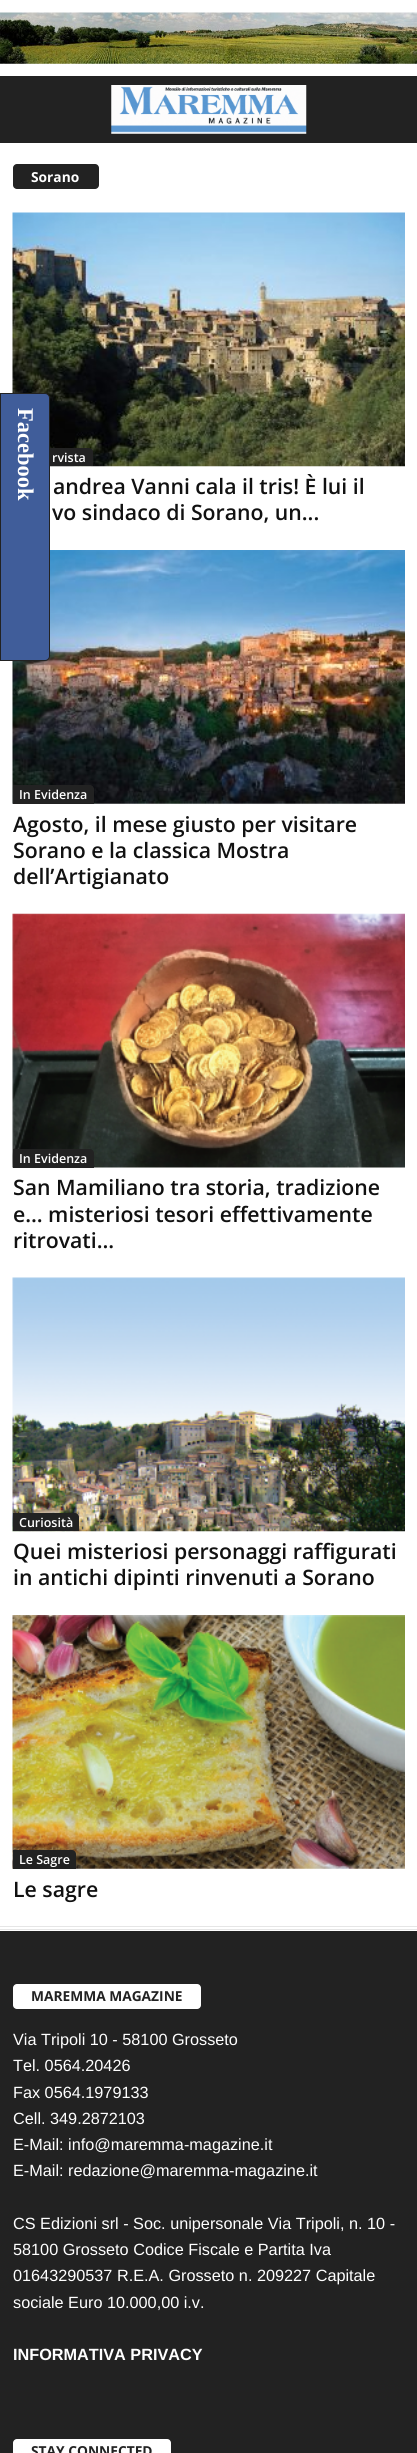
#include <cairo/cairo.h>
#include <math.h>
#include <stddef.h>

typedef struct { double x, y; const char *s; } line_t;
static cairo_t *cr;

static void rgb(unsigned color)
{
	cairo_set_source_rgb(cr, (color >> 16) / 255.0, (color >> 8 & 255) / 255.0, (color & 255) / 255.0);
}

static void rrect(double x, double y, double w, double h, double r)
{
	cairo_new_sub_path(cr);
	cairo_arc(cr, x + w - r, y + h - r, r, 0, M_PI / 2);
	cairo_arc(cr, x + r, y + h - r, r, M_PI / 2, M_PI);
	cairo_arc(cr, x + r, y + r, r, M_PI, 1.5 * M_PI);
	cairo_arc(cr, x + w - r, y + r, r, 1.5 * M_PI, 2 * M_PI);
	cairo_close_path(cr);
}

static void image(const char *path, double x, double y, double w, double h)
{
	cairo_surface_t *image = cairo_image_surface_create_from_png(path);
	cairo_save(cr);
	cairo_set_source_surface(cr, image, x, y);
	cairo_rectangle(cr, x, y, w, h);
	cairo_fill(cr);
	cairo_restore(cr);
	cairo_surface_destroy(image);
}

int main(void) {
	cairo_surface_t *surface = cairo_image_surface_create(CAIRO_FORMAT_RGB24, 417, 2453);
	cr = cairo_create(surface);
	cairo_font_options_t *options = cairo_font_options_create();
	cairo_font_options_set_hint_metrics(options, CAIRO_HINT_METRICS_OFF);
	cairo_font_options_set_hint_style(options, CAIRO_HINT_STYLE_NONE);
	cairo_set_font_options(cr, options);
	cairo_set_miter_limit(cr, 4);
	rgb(0xffffff);
	cairo_paint(cr);
	image("img/1.png", 0, 12, 417, 52);
	rgb(0x222222);
	cairo_rectangle(cr, 0, 76, 417, 67);
	cairo_fill(cr);
	image("img/2.png", 111, 85, 196, 49);
	rgb(0xe6e6e6);
	cairo_rectangle(cr, 0, 1926, 417, 1);
	cairo_fill(cr);
	rgb(0x222222);
	rrect(13, 164, 86, 25, 4);
	cairo_fill(cr);
	image("img/3.png", 12, 212, 393, 255);
	cairo_new_path(cr);
	cairo_move_to(cr, 13, 448);
	cairo_line_to(cr, 89, 448);
	cairo_curve_to(cr, 91, 448, 93, 450, 93, 452);
	cairo_line_to(cr, 93, 466);
	cairo_line_to(cr, 13, 466);
	cairo_close_path(cr);
	cairo_fill(cr);
	image("img/4.png", 12, 550, 393, 254);
	cairo_new_path(cr);
	cairo_move_to(cr, 13, 785);
	cairo_line_to(cr, 90, 785);
	cairo_curve_to(cr, 92, 785, 94, 787, 94, 789);
	cairo_line_to(cr, 94, 804);
	cairo_line_to(cr, 13, 804);
	cairo_close_path(cr);
	cairo_fill(cr);
	image("img/5.png", 12, 913, 393, 255);
	cairo_new_path(cr);
	cairo_move_to(cr, 13, 1149);
	cairo_line_to(cr, 90, 1149);
	cairo_curve_to(cr, 92, 1149, 94, 1151, 94, 1153);
	cairo_line_to(cr, 94, 1168);
	cairo_line_to(cr, 13, 1168);
	cairo_close_path(cr);
	cairo_fill(cr);
	image("img/6.png", 12, 1277, 393, 255);
	cairo_new_path(cr);
	cairo_move_to(cr, 13, 1513);
	cairo_line_to(cr, 75, 1513);
	cairo_curve_to(cr, 77, 1513, 79, 1515, 79, 1517);
	cairo_line_to(cr, 79, 1531);
	cairo_line_to(cr, 13, 1531);
	cairo_close_path(cr);
	cairo_fill(cr);
	image("img/7.png", 12, 1615, 393, 254);
	cairo_new_path(cr);
	cairo_move_to(cr, 13, 1850);
	cairo_line_to(cr, 72, 1850);
	cairo_curve_to(cr, 74, 1850, 76, 1852, 76, 1854);
	cairo_line_to(cr, 76, 1869);
	cairo_line_to(cr, 13, 1869);
	cairo_close_path(cr);
	cairo_fill(cr);
	rgb(0xe6e6e6);
	cairo_rectangle(cr, 0, 1929, 417, 1);
	cairo_fill(cr);
	rgb(0x222222);
	cairo_rectangle(cr, 0, 1931, 417, 522);
	cairo_fill(cr);
	rgb(0xffffff);
	rrect(13, 1984, 188, 25, 4);
	cairo_fill(cr);
	rrect(13, 2439, 158, 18, 4);
	cairo_fill(cr);
	rgb(0x405d9a);
	cairo_new_path(cr);
	cairo_move_to(cr, 0.5, 393.5);
	cairo_line_to(cr, 45, 393.5);
	cairo_curve_to(cr, 47.5, 393.5, 49.5, 395.5, 49.5, 398);
	cairo_line_to(cr, 49.5, 656);
	cairo_curve_to(cr, 49.5, 658.5, 47.5, 660.5, 45, 660.5);
	cairo_line_to(cr, 0.5, 660.5);
	cairo_close_path(cr);
	cairo_fill_preserve(cr);
	rgb(0x222222);
	cairo_set_line_width(cr, 1);
	cairo_stroke(cr);
	cairo_select_font_face(cr, "Open Sans", CAIRO_FONT_SLANT_NORMAL, CAIRO_FONT_WEIGHT_BOLD);
	cairo_set_font_size(cr, 13.75);
	rgb(0xffffff);
	cairo_move_to(cr, 31, 182);
	cairo_show_text(cr, "Sorano");
	cairo_select_font_face(cr, "Open Sans SemiBold", CAIRO_FONT_SLANT_NORMAL, CAIRO_FONT_WEIGHT_NORMAL);
	cairo_set_font_size(cr, 12.5);
	cairo_move_to(cr, 52, 462);
	cairo_show_text(cr, "rvista");
	cairo_set_font_size(cr, 21.25);
	rgb(0x111111);
	cairo_move_to(cr, 53, 494);
	cairo_show_text(cr, "andrea Vanni cala il tris! È lui il");
	cairo_move_to(cr, 52, 520);
	cairo_show_text(cr, "vo sindaco di Sorano, un...");
	cairo_set_font_size(cr, 12.5);
	rgb(0xffffff);
	cairo_move_to(cr, 19, 799);
	cairo_show_text(cr, "In Evidenza");
	cairo_set_font_size(cr, 21.25);
	rgb(0x111111);
	{
		static const line_t items[] = {
			{13, 832, "Agosto, il mese giusto per visitare"},
			{13, 858, "Sorano e la classica Mostra"},
			{13, 884, "dell’Artigianato"},
		};
		for (size_t i = 0; i < sizeof items / sizeof *items; i++) {
			cairo_move_to(cr, items[i].x, items[i].y);
			cairo_show_text(cr, items[i].s);
		}
	}
	cairo_set_font_size(cr, 12.5);
	rgb(0xffffff);
	cairo_move_to(cr, 19, 1163);
	cairo_show_text(cr, "In Evidenza");
	cairo_set_font_size(cr, 21.25);
	rgb(0x111111);
	{
		static const line_t items[] = {
			{13, 1195, "San Mamiliano tra storia, tradizione"},
			{13, 1222, "e… misteriosi tesori effettivamente"},
			{13, 1248, "ritrovati…"},
		};
		for (size_t i = 0; i < sizeof items / sizeof *items; i++) {
			cairo_move_to(cr, items[i].x, items[i].y);
			cairo_show_text(cr, items[i].s);
		}
	}
	cairo_set_font_size(cr, 12.5);
	rgb(0xffffff);
	cairo_move_to(cr, 19, 1527);
	cairo_show_text(cr, "Curiosità");
	cairo_set_font_size(cr, 21.25);
	rgb(0x111111);
	cairo_move_to(cr, 13, 1559);
	cairo_show_text(cr, "Quei misteriosi personaggi raffigurati");
	cairo_move_to(cr, 13, 1585);
	cairo_show_text(cr, "in antichi dipinti rinvenuti a Sorano");
	cairo_set_font_size(cr, 12.5);
	rgb(0xffffff);
	cairo_move_to(cr, 19, 1864);
	cairo_show_text(cr, "Le Sagre");
	cairo_set_font_size(cr, 21.25);
	rgb(0x111111);
	cairo_move_to(cr, 13, 1897);
	cairo_show_text(cr, "Le sagre");
	cairo_select_font_face(cr, "Open Sans", CAIRO_FONT_SLANT_NORMAL, CAIRO_FONT_WEIGHT_BOLD);
	cairo_set_font_size(cr, 13.75);
	rgb(0x222222);
	cairo_move_to(cr, 31, 2001);
	cairo_show_text(cr, "MAREMMA MAGAZINE");
	cairo_select_font_face(cr, "Liberation Sans", CAIRO_FONT_SLANT_NORMAL, CAIRO_FONT_WEIGHT_NORMAL);
	cairo_set_font_size(cr, 16.25);
	rgb(0xffffff);
	{
		static const line_t items[] = {
			{13, 2045, "Via Tripoli 10 - 58100 Grosseto"},
			{13, 2071, "Tel. 0564.20426"},
			{13, 2098, "Fax 0564.1979133"},
			{13, 2124, "Cell. 349.2872103"},
			{13, 2150, "E-Mail: info@maremma-magazine.it"},
			{13, 2176, "E-Mail: redazione@maremma-magazine.it"},
			{13, 2229, "CS Edizioni srl - Soc. unipersonale Via Tripoli, n. 10 -"},
			{13, 2255, "58100 Grosseto Codice Fiscale e Partita Iva"},
			{13, 2281, "01643290537 R.E.A. Grosseto n. 209227 Capitale"},
			{13, 2308, "sociale Euro 10.000,00 i.v."},
		};
		for (size_t i = 0; i < sizeof items / sizeof *items; i++) {
			cairo_move_to(cr, items[i].x, items[i].y);
			cairo_show_text(cr, items[i].s);
		}
	}
	cairo_select_font_face(cr, "Liberation Sans", CAIRO_FONT_SLANT_NORMAL, CAIRO_FONT_WEIGHT_BOLD);
	cairo_move_to(cr, 13, 2360);
	cairo_show_text(cr, "INFORMATIVA PRIVACY");
	cairo_select_font_face(cr, "Open Sans", CAIRO_FONT_SLANT_NORMAL, CAIRO_FONT_WEIGHT_BOLD);
	cairo_set_font_size(cr, 13.75);
	rgb(0x222222);
	cairo_move_to(cr, 31, 2456);
	cairo_show_text(cr, "STAY CONNECTED");
	cairo_select_font_face(cr, "Liberation Serif", CAIRO_FONT_SLANT_NORMAL, CAIRO_FONT_WEIGHT_BOLD);
	cairo_set_font_size(cr, 22.5);
	rgb(0xffffff);
	cairo_save(cr);
	cairo_translate(cr, 18, 408);
	cairo_rotate(cr, 90 * M_PI / 180);
	cairo_move_to(cr, 0, 0);
	cairo_show_text(cr, "Facebook");
	cairo_restore(cr);
	cairo_surface_write_to_png(surface, "page.png");
	cairo_font_options_destroy(options);
	cairo_destroy(cr);
	cairo_surface_destroy(surface);
	return 0;
}
